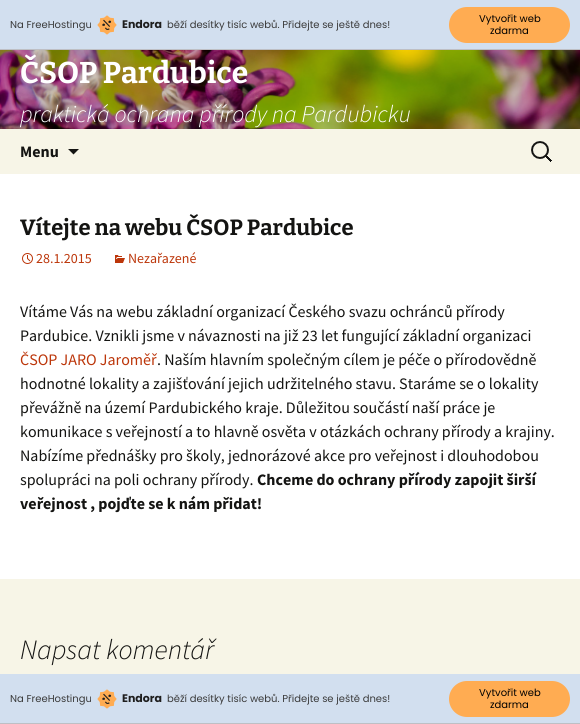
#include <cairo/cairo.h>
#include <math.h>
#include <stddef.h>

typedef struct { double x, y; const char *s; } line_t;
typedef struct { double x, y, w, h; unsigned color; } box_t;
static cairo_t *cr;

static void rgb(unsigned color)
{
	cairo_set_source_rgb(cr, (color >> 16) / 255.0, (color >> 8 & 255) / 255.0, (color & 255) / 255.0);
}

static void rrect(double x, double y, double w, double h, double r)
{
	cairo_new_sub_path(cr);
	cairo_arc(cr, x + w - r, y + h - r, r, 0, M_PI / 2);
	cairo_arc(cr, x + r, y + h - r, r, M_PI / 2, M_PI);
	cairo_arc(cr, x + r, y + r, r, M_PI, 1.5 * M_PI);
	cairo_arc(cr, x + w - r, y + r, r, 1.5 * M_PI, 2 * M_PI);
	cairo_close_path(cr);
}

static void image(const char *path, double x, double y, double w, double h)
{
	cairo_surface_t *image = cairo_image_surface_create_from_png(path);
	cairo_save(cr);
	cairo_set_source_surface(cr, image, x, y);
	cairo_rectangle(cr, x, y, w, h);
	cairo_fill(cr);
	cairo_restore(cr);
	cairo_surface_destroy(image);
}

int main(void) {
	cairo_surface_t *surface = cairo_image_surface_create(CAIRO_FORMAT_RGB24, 580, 724);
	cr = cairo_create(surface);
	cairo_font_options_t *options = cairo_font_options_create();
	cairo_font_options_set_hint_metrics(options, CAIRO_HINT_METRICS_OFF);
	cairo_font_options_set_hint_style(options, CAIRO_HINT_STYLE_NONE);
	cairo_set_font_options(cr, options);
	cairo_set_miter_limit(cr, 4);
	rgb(0xffffff);
	cairo_paint(cr);
	rgb(0xd2dfef);
	cairo_rectangle(cr, 0, 0, 580, 49);
	cairo_fill(cr);
	rgb(0xbebfc4);
	cairo_rectangle(cr, 0, 49, 580, 1);
	cairo_fill(cr);
	image("img/1.png", 97, 15, 20, 20);
	rgb(0xffac52);
	rrect(449, 7, 121, 36, 18);
	cairo_fill(cr);
	image("img/2.png", 0, 50, 580, 79);
	rgb(0xf7f5e7);
	cairo_rectangle(cr, 0, 129, 580, 45);
	cairo_fill(cr);
	rgb(0x141412);
	cairo_new_path(cr);
	cairo_move_to(cr, 68, 149);
	cairo_line_to(cr, 73.5, 154.5);
	cairo_line_to(cr, 79, 149);
	cairo_close_path(cr);
	cairo_fill(cr);
	image("img/3.png", 531, 141, 21, 21);
	image("img/4.png", 22, 253, 11, 11);
	image("img/5.png", 115, 255, 10, 8);
	{
		static const box_t items[] = {
			{0, 579, 580, 95, 0xf7f5e7},
			{0, 674, 580, 49, 0xd2dfef},
			{0, 723, 580, 1, 0xbebfc4},
		};
		for (size_t i = 0; i < sizeof items / sizeof *items; i++) {
			rgb(items[i].color);
			cairo_rectangle(cr, items[i].x, items[i].y, items[i].w, items[i].h);
			cairo_fill(cr);
		}
	}
	image("img/1.png", 97, 689, 20, 20);
	rgb(0xffac52);
	rrect(449, 681, 121, 36, 18);
	cairo_fill(cr);
	cairo_select_font_face(cr, "Poppins", CAIRO_FONT_SLANT_NORMAL, CAIRO_FONT_WEIGHT_NORMAL);
	cairo_set_font_size(cr, 10);
	rgb(0x3a3a3a);
	cairo_move_to(cr, 10, 28);
	cairo_show_text(cr, "Na FreeHostingu");
	cairo_select_font_face(cr, "Poppins", CAIRO_FONT_SLANT_NORMAL, CAIRO_FONT_WEIGHT_BOLD);
	cairo_set_font_size(cr, 11);
	rgb(0x1e1e1e);
	cairo_move_to(cr, 122, 28);
	cairo_show_text(cr, "Endora");
	cairo_select_font_face(cr, "Poppins", CAIRO_FONT_SLANT_NORMAL, CAIRO_FONT_WEIGHT_NORMAL);
	cairo_set_font_size(cr, 10);
	rgb(0x3a3a3a);
	cairo_move_to(cr, 167, 28);
	cairo_show_text(cr, "běží desítky tisíc webů. Přidejte se ještě dnes!");
	rgb(0x000000);
	cairo_move_to(cr, 479, 22);
	cairo_show_text(cr, "Vytvořit web");
	cairo_move_to(cr, 490, 34);
	cairo_show_text(cr, "zdarma");
	cairo_select_font_face(cr, "Bitter", CAIRO_FONT_SLANT_NORMAL, CAIRO_FONT_WEIGHT_BOLD);
	cairo_set_font_size(cr, 30);
	rgb(0xffffff);
	cairo_move_to(cr, 20, 83);
	cairo_show_text(cr, "ČSOP Pardubice");
	cairo_select_font_face(cr, "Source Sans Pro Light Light", CAIRO_FONT_SLANT_ITALIC, CAIRO_FONT_WEIGHT_NORMAL);
	cairo_set_font_size(cr, 24);
	cairo_move_to(cr, 20, 122);
	cairo_show_text(cr, "praktická ochrana přírody na Pardubicku");
	cairo_select_font_face(cr, "Source Sans Pro", CAIRO_FONT_SLANT_NORMAL, CAIRO_FONT_WEIGHT_BOLD);
	cairo_set_font_size(cr, 16);
	rgb(0x141412);
	cairo_move_to(cr, 20, 157);
	cairo_show_text(cr, "Menu");
	cairo_select_font_face(cr, "Bitter", CAIRO_FONT_SLANT_NORMAL, CAIRO_FONT_WEIGHT_BOLD);
	cairo_set_font_size(cr, 22);
	cairo_move_to(cr, 20, 235);
	cairo_show_text(cr, "Vítejte na webu ČSOP Pardubice");
	cairo_select_font_face(cr, "Source Sans Pro", CAIRO_FONT_SLANT_NORMAL, CAIRO_FONT_WEIGHT_NORMAL);
	cairo_set_font_size(cr, 14);
	rgb(0xbc360a);
	cairo_move_to(cr, 36, 263);
	cairo_show_text(cr, "28.1.2015");
	cairo_move_to(cr, 128, 263);
	cairo_show_text(cr, "Nezařazené");
	cairo_set_font_size(cr, 16);
	rgb(0x141412);
	cairo_move_to(cr, 20, 317);
	cairo_show_text(cr, "Vítáme Vás na webu základní organizací Českého svazu ochránců přírody");
	cairo_move_to(cr, 20, 341);
	cairo_show_text(cr, "Pardubice. Vznikli jsme v návaznosti na již 23 let fungující základní organizaci");
	rgb(0xbc360a);
	cairo_move_to(cr, 20, 365);
	cairo_show_text(cr, "ČSOP JARO Jaroměř");
	rgb(0x141412);
	{
		static const line_t items[] = {
			{157, 365, ". Naším hlavním společným cílem je péče o přírodovědně"},
			{20, 389, "hodnotné lokality a zajišťování jejich udržitelného stavu. Staráme se o lokality"},
			{20, 413, "převážně na území Pardubického kraje. Důležitou součástí naší práce je"},
			{20, 437, "komunikace s veřejností a to hlavně osvěta v otázkách ochrany přírody a krajiny."},
			{20, 461, "Nabízíme přednášky pro školy, jednorázové akce pro veřejnost i dlouhodobou"},
			{20, 485, "spolupráci na poli ochrany přírody."},
		};
		for (size_t i = 0; i < sizeof items / sizeof *items; i++) {
			cairo_move_to(cr, items[i].x, items[i].y);
			cairo_show_text(cr, items[i].s);
		}
	}
	cairo_select_font_face(cr, "Source Sans Pro", CAIRO_FONT_SLANT_NORMAL, CAIRO_FONT_WEIGHT_BOLD);
	cairo_move_to(cr, 257, 485);
	cairo_show_text(cr, "Chceme do ochrany přírody zapojit širší");
	cairo_move_to(cr, 20, 509);
	cairo_show_text(cr, "veřejnost , pojďte se k nám přidat!");
	cairo_select_font_face(cr, "Source Sans Pro Light Light", CAIRO_FONT_SLANT_ITALIC, CAIRO_FONT_WEIGHT_NORMAL);
	cairo_set_font_size(cr, 28);
	cairo_move_to(cr, 20, 659);
	cairo_show_text(cr, "Napsat komentář");
	cairo_select_font_face(cr, "Poppins", CAIRO_FONT_SLANT_NORMAL, CAIRO_FONT_WEIGHT_NORMAL);
	cairo_set_font_size(cr, 10);
	rgb(0x3a3a3a);
	cairo_move_to(cr, 10, 702);
	cairo_show_text(cr, "Na FreeHostingu");
	cairo_select_font_face(cr, "Poppins", CAIRO_FONT_SLANT_NORMAL, CAIRO_FONT_WEIGHT_BOLD);
	cairo_set_font_size(cr, 11);
	rgb(0x1e1e1e);
	cairo_move_to(cr, 122, 702);
	cairo_show_text(cr, "Endora");
	cairo_select_font_face(cr, "Poppins", CAIRO_FONT_SLANT_NORMAL, CAIRO_FONT_WEIGHT_NORMAL);
	cairo_set_font_size(cr, 10);
	rgb(0x3a3a3a);
	cairo_move_to(cr, 167, 702);
	cairo_show_text(cr, "běží desítky tisíc webů. Přidejte se ještě dnes!");
	rgb(0x000000);
	cairo_move_to(cr, 479, 696);
	cairo_show_text(cr, "Vytvořit web");
	cairo_move_to(cr, 490, 708);
	cairo_show_text(cr, "zdarma");
	cairo_surface_write_to_png(surface, "page.png");
	cairo_font_options_destroy(options);
	cairo_destroy(cr);
	cairo_surface_destroy(surface);
	return 0;
}
